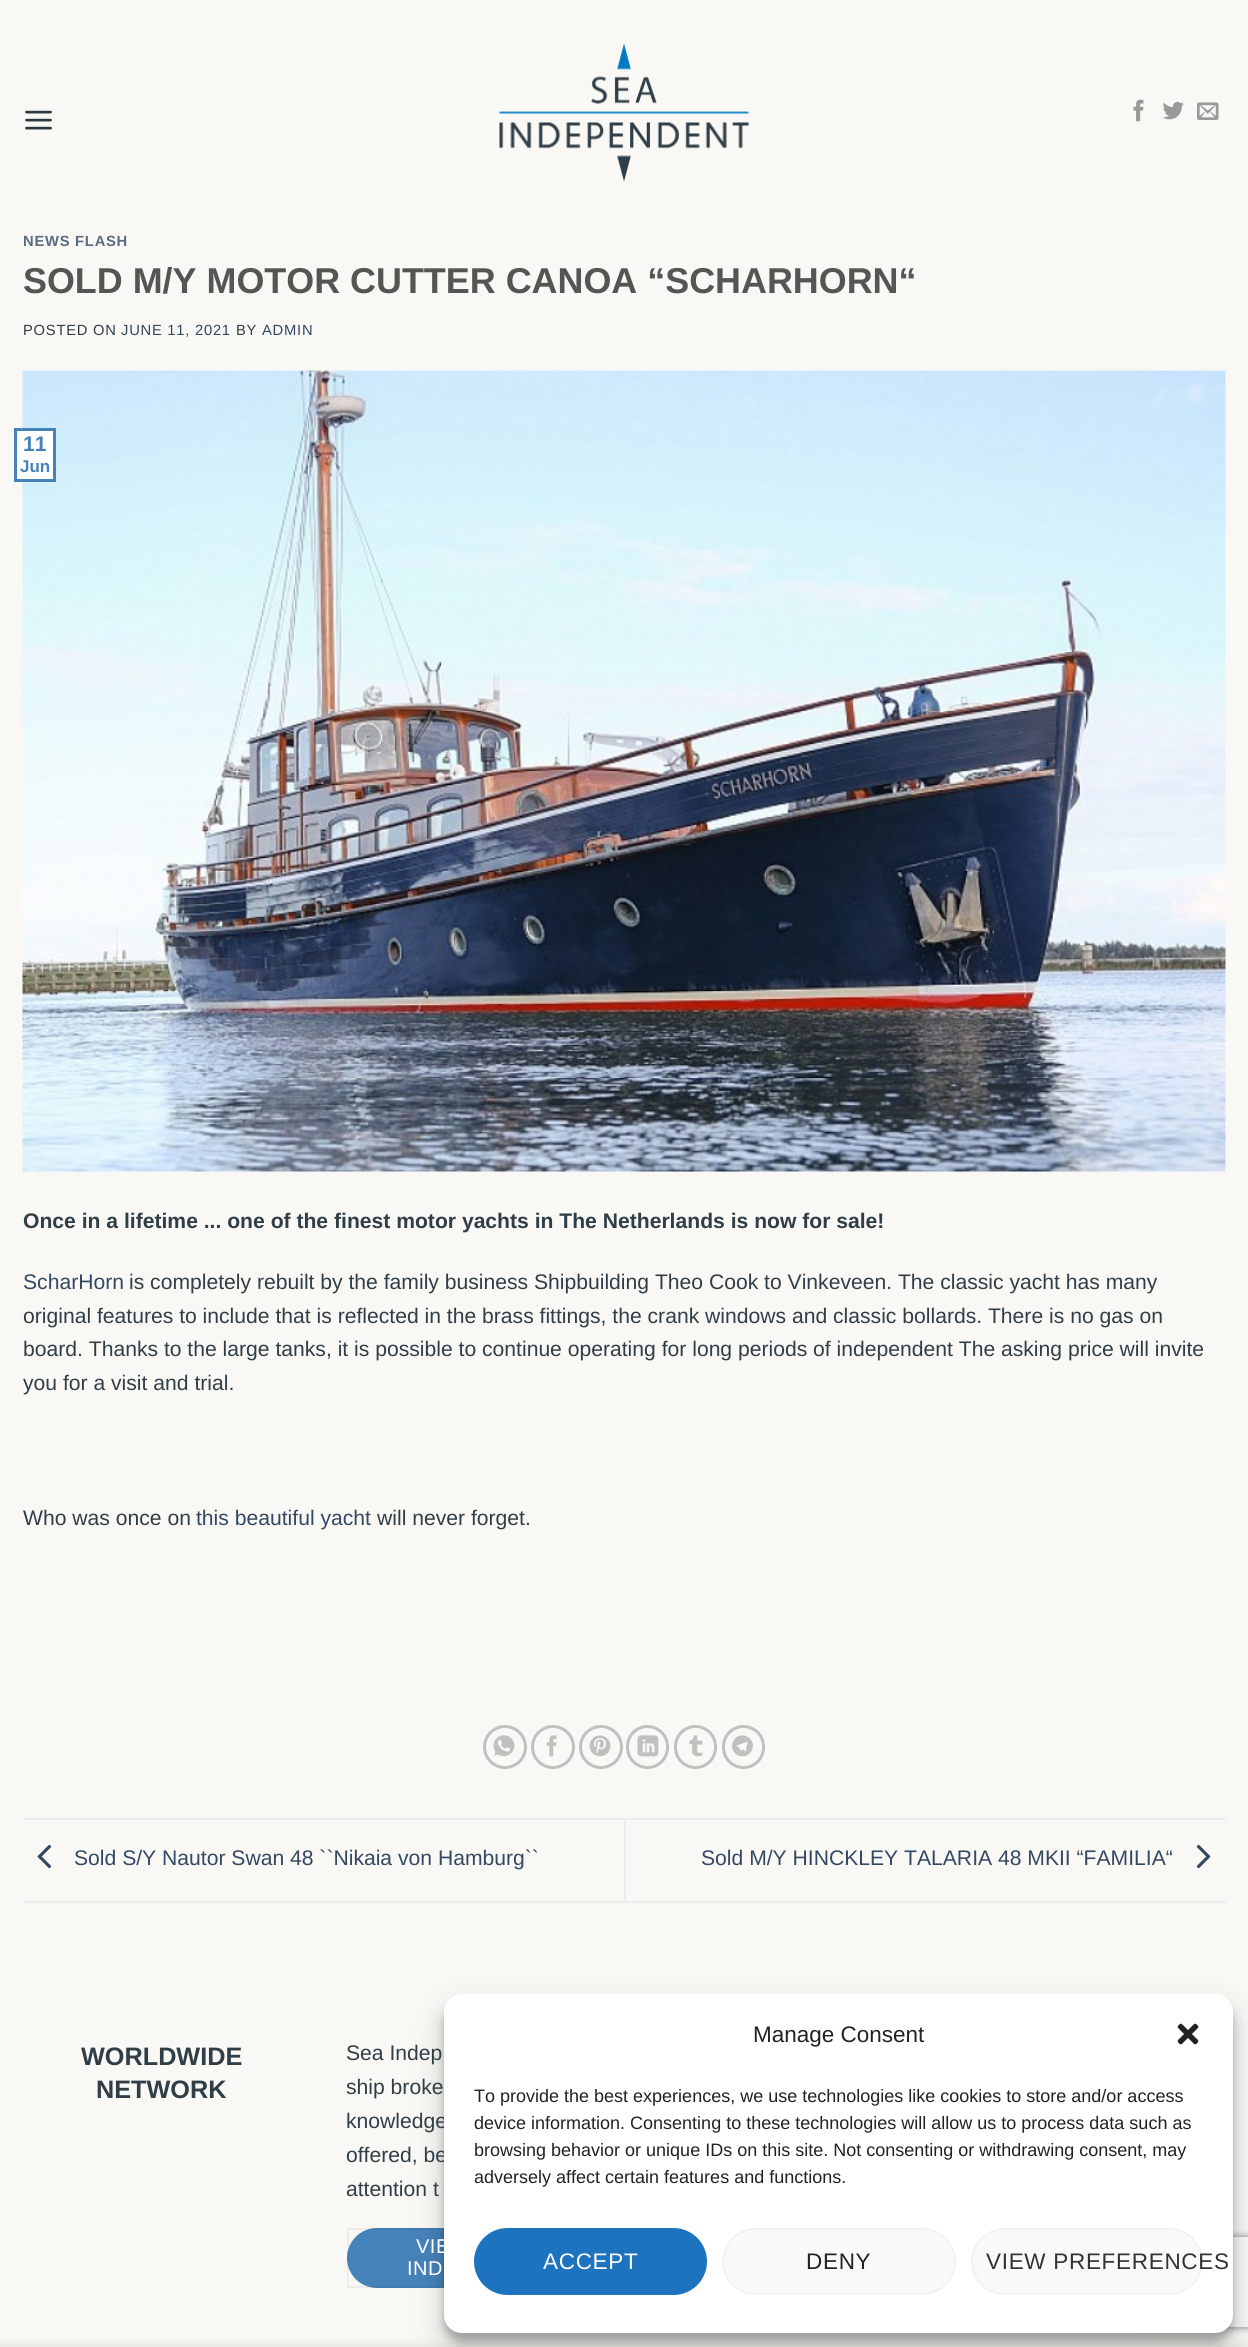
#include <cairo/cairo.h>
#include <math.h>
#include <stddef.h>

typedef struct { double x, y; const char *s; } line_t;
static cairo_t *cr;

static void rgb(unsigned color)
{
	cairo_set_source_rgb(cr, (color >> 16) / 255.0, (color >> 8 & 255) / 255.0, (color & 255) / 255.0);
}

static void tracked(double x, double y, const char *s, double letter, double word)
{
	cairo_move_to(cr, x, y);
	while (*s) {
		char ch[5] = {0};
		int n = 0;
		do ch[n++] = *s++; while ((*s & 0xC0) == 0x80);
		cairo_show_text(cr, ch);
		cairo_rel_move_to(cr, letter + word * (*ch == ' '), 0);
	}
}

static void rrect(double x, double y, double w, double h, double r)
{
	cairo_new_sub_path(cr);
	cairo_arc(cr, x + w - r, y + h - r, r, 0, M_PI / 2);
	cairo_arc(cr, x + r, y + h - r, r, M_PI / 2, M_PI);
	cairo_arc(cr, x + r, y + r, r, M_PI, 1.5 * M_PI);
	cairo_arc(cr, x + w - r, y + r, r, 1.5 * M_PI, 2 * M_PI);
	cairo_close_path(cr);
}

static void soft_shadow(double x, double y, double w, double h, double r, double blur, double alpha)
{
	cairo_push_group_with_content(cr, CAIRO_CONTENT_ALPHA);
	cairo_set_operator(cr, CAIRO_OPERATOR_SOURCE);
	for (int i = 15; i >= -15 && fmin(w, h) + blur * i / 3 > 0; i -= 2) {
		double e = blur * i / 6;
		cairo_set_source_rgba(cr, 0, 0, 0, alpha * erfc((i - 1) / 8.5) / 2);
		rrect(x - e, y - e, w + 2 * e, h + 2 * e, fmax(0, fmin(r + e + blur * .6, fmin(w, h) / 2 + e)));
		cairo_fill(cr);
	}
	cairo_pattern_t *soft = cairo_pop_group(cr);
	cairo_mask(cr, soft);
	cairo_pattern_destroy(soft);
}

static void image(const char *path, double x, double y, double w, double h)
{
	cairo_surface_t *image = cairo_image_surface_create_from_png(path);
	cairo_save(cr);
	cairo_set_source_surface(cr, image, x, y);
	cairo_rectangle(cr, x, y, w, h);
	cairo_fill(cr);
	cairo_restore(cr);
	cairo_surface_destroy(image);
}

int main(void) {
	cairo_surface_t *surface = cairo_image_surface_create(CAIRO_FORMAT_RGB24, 1248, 2347);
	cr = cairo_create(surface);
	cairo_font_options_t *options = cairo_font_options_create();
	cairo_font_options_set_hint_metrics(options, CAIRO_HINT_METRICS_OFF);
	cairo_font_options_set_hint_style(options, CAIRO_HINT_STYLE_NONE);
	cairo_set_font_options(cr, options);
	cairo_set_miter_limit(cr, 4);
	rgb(0xfaf8f4);
	cairo_paint(cr);
	image("img/1.png", 25, 110, 27, 20);
	image("img/2.png", 499, 43, 250, 139);
	image("img/3.png", 1133, 99, 11, 23);
	image("img/4.png", 1162, 101, 22, 19);
	image("img/5.png", 1197, 102, 22, 18);
	image("img/6.png", 22, 370, 1204, 802);
	rgb(0xffffff);
	cairo_rectangle(cr, 15.5, 429.5, 39, 51);
	cairo_fill_preserve(cr);
	rgb(0x4682ba);
	cairo_set_line_width(cr, 3);
	cairo_stroke(cr);
	cairo_arc(cr, 505, 1747, 20.5, 0, 2 * M_PI);
	rgb(0xc0c0c0);
	cairo_stroke(cr);
	image("img/7.png", 493, 1735, 22, 22);
	cairo_arc(cr, 553, 1747, 20.5, 0, 2 * M_PI);
	cairo_stroke(cr);
	image("img/8.png", 546, 1735, 11, 22);
	cairo_arc(cr, 601, 1747, 20.5, 0, 2 * M_PI);
	cairo_stroke(cr);
	image("img/9.png", 589, 1735, 22, 22);
	rrect(627.5, 1726.5, 40, 41, 20);
	cairo_stroke(cr);
	image("img/10.png", 637, 1735, 22, 22);
	rrect(675.5, 1726.5, 40, 41, 20);
	cairo_stroke(cr);
	image("img/11.png", 689, 1735, 14, 22);
	rrect(723.5, 1726.5, 40, 41, 20);
	cairo_stroke(cr);
	image("img/12.png", 732, 1735, 21, 22);
	rgb(0xececec);
	cairo_rectangle(cr, 23, 1818, 1203, 2);
	cairo_fill(cr);
	cairo_rectangle(cr, 23, 1901, 1203, 2);
	cairo_fill(cr);
	image("img/13.png", 37, 1844, 15, 25);
	cairo_rectangle(cr, 624, 1820, 2, 81);
	cairo_fill(cr);
	image("img/14.png", 1196, 1844, 15, 25);
	rgb(0x4682ba);
	rrect(347, 2228, 289, 60, 30);
	cairo_fill(cr);
	cairo_rectangle(cr, 348, 2229, 287, 58);
	cairo_set_source_rgba(cr, 0, 0, 0, 0.05);
	cairo_set_line_width(cr, 2);
	cairo_stroke(cr);
	rgb(0x808080);
	soft_shadow(1143, 2237, 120, 90, 3, 4, 1);
	rgb(0xfaf8f4);
	cairo_rectangle(cr, 1228, 2237, 20, 90);
	cairo_fill(cr);
	rgb(0x000000);
	soft_shadow(444, 2003, 789, 339, 18, 4.5, 0.23);
	soft_shadow(444, 2009, 789, 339, 18, 15, 0.19);
	cairo_select_font_face(cr, "Liberation Sans", CAIRO_FONT_SLANT_NORMAL, CAIRO_FONT_WEIGHT_BOLD);
	cairo_set_font_size(cr, 14.75);
	rgb(0x5b6b7f);
	tracked(23, 246, "NEWS FLASH", 0.75, 0);
	cairo_set_font_size(cr, 35.9);
	rgb(0x555555);
	cairo_move_to(cr, 23, 293);
	cairo_show_text(cr, "SOLD M/Y MOTOR CUTTER CANOA “SCHARHORN“");
	cairo_select_font_face(cr, "Liberation Sans", CAIRO_FONT_SLANT_NORMAL, CAIRO_FONT_WEIGHT_NORMAL);
	cairo_set_font_size(cr, 14.75);
	rgb(0x303e48);
	tracked(23, 335, "POSTED ON", 0.75, 0);
	rgb(0x334862);
	tracked(121, 335, "JUNE 11, 2021", 0.75, 0);
	rgb(0x303e48);
	tracked(236, 335, "BY", 0.75, 0);
	rgb(0x334862);
	tracked(262, 335, "ADMIN", 0.75, 0);
	cairo_select_font_face(cr, "Liberation Sans", CAIRO_FONT_SLANT_NORMAL, CAIRO_FONT_WEIGHT_BOLD);
	cairo_set_font_size(cr, 21.12);
	rgb(0x4682ba);
	cairo_move_to(cr, 23, 451);
	cairo_show_text(cr, "11");
	cairo_set_font_size(cr, 17);
	cairo_move_to(cr, 20, 472);
	cairo_show_text(cr, "Jun");
	cairo_set_font_size(cr, 21.12);
	rgb(0x303e48);
	cairo_move_to(cr, 23, 1228);
	cairo_show_text(cr, "Once in a lifetime ... one of the finest motor yachts in The Netherlands is now for sale!");
	cairo_select_font_face(cr, "Liberation Sans", CAIRO_FONT_SLANT_NORMAL, CAIRO_FONT_WEIGHT_NORMAL);
	rgb(0x334862);
	cairo_move_to(cr, 23, 1289);
	cairo_show_text(cr, "ScharHorn");
	rgb(0x303e48);
	{
		static const line_t items[] = {
			{129, 1289, "is completely rebuilt by the family business Shipbuilding Theo Cook to Vinkeveen. The classic yacht has many"},
			{23, 1323, "original features to include that is reflected in the brass fittings, the crank windows and classic bollards. There is no gas on"},
			{23, 1356, "board. Thanks to the large tanks, it is possible to continue operating for long periods of independent The asking price will invite"},
			{23, 1390, "you for a visit and trial."},
			{23, 1525, "Who was once on"},
		};
		for (size_t i = 0; i < sizeof items / sizeof *items; i++) {
			cairo_move_to(cr, items[i].x, items[i].y);
			cairo_show_text(cr, items[i].s);
		}
	}
	rgb(0x334862);
	cairo_move_to(cr, 196, 1525);
	cairo_show_text(cr, "this beautiful yacht");
	rgb(0x303e48);
	cairo_move_to(cr, 377, 1525);
	cairo_show_text(cr, "will never forget.");
	rgb(0x334862);
	cairo_move_to(cr, 74, 1865);
	cairo_show_text(cr, "Sold S/Y Nautor Swan 48 ``Nikaia von Hamburg``");
	cairo_move_to(cr, 701, 1865);
	cairo_show_text(cr, "Sold M/Y HINCKLEY TALARIA 48 MKII “FAMILIA“");
	cairo_select_font_face(cr, "Liberation Sans", CAIRO_FONT_SLANT_NORMAL, CAIRO_FONT_WEIGHT_BOLD);
	cairo_set_font_size(cr, 25.25);
	rgb(0x303e48);
	cairo_move_to(cr, 81, 2065);
	cairo_show_text(cr, "WORLDWIDE");
	cairo_move_to(cr, 96, 2098);
	cairo_show_text(cr, "NETWORK");
	cairo_select_font_face(cr, "Liberation Sans", CAIRO_FONT_SLANT_NORMAL, CAIRO_FONT_WEIGHT_NORMAL);
	cairo_set_font_size(cr, 21.12);
	{
		static const line_t items[] = {
			{346, 2060, "Sea Indep"},
			{346, 2094, "ship broke"},
			{346, 2128, "knowledge"},
			{346, 2162, "offered, be"},
			{346, 2196, "attention t"},
		};
		for (size_t i = 0; i < sizeof items / sizeof *items; i++) {
			cairo_move_to(cr, items[i].x, items[i].y);
			cairo_show_text(cr, items[i].s);
		}
	}
	cairo_set_font_size(cr, 20);
	rgb(0xffffff);
	tracked(416, 2253, "VIE", 0.5, 0);
	tracked(407, 2275, "IND", 0.5, 0);
	rrect(444, 1994, 789, 339, 18);
	cairo_fill(cr);
	cairo_set_font_size(cr, 22.5);
	rgb(0x222222);
	cairo_move_to(cr, 753, 2042);
	cairo_show_text(cr, "Manage Consent");
	image("img/15.png", 1177, 2023, 22, 22);
	cairo_set_font_size(cr, 18);
	{
		static const line_t items[] = {
			{474, 2102, "To provide the best experiences, we use technologies like cookies to store and/or access"},
			{474, 2129, "device information. Consenting to these technologies will allow us to process data such as"},
			{474, 2156, "browsing behavior or unique IDs on this site. Not consenting or withdrawing consent, may"},
			{474, 2183, "adversely affect certain features and functions."},
		};
		for (size_t i = 0; i < sizeof items / sizeof *items; i++) {
			cairo_move_to(cr, items[i].x, items[i].y);
			cairo_show_text(cr, items[i].s);
		}
	}
	rgb(0x1e73be);
	rrect(475, 2229, 231, 65, 32.5);
	cairo_fill_preserve(cr);
	cairo_stroke(cr);
	cairo_set_font_size(cr, 22.5);
	rgb(0xffffff);
	tracked(543, 2269, "ACCEPT", 0.7, 0);
	rgb(0xf9f9f9);
	rrect(723, 2229, 232, 65, 32.5);
	cairo_fill_preserve(cr);
	rgb(0xf2f2f2);
	cairo_stroke(cr);
	rgb(0x222222);
	tracked(806, 2269, "DENY", 0.7, 0);
	rgb(0xf9f9f9);
	rrect(972, 2229, 230, 65, 32.5);
	cairo_fill_preserve(cr);
	rgb(0xf2f2f2);
	cairo_stroke(cr);
	rgb(0x333333);
	tracked(986, 2269, "VIEW PREFERENCES", 0.7, 0);
	rgb(0x000000);
	soft_shadow(0, 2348, 1248, 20, 0, 7, 0.14);
	cairo_surface_write_to_png(surface, "page.png");
	cairo_font_options_destroy(options);
	cairo_destroy(cr);
	cairo_surface_destroy(surface);
	return 0;
}
